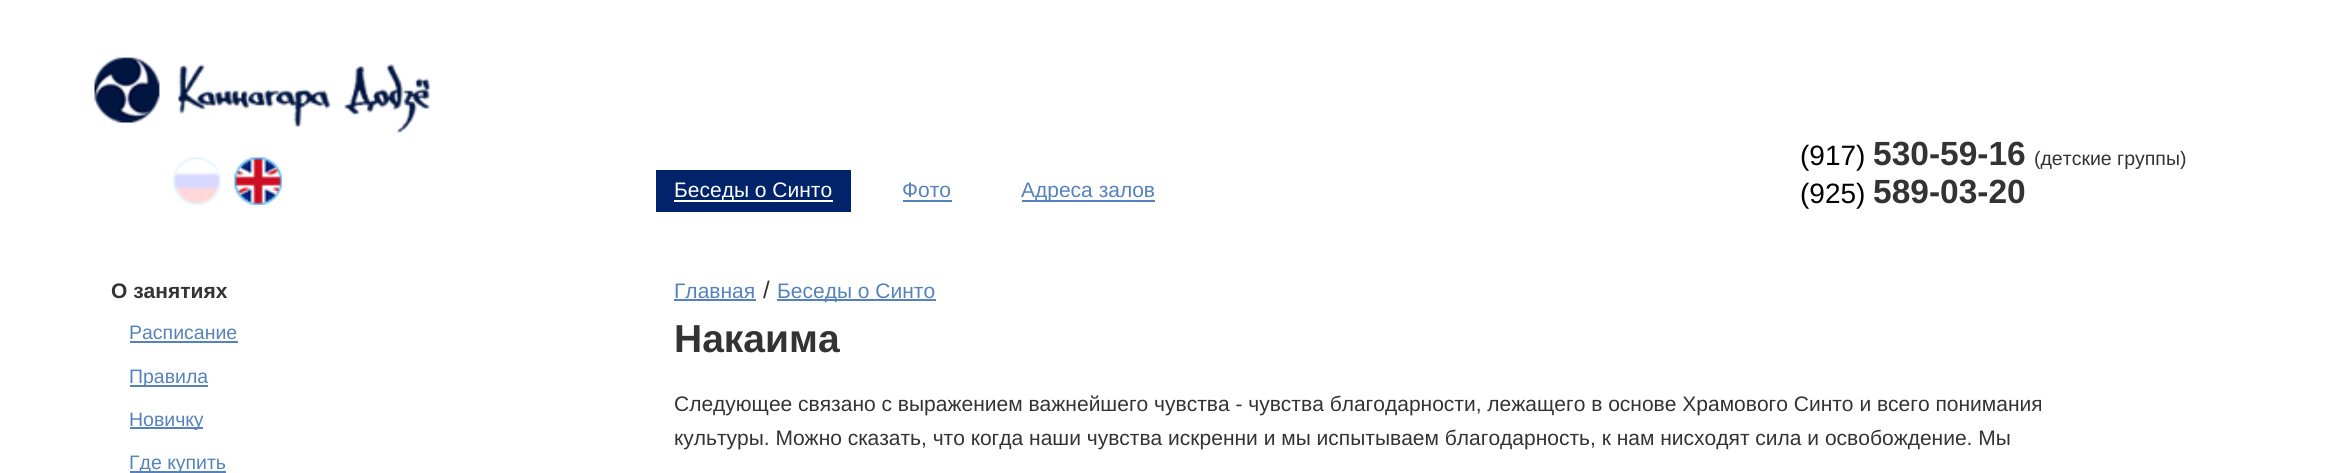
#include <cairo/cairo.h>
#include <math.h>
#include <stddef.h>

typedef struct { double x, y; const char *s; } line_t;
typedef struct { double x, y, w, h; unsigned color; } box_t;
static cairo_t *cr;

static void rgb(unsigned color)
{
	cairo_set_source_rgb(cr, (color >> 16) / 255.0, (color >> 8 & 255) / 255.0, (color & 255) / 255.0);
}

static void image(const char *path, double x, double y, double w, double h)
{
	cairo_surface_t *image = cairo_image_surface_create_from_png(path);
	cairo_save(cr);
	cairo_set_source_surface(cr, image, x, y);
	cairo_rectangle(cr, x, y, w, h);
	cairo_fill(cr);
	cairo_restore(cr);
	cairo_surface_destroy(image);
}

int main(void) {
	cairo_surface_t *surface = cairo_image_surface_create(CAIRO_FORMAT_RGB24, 2344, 473);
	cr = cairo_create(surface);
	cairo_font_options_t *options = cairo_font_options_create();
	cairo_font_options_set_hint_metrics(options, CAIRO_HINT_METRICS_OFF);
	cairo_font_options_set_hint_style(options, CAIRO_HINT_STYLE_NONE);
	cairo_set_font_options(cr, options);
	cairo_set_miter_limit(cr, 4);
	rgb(0xffffff);
	cairo_paint(cr);
	image("img/1.png", 94, 57, 337, 76);
	image("img/2.png", 173, 157, 48, 48);
	image("img/3.png", 234, 157, 48, 48);
	{
		static const box_t items[] = {
			{656, 170, 195, 42, 0x00236a},
			{674, 200, 159, 2, 0xffffff},
			{903, 200, 49, 2, 0x5682bc},
			{1022, 200, 133, 2, 0x5682bc},
			{130, 341, 108, 2, 0x5682bc},
			{130, 385, 78, 2, 0x5682bc},
			{130, 427, 73, 2, 0x5682bc},
			{130, 471, 96, 2, 0x5682bc},
			{674, 299, 82, 2, 0x5682bc},
			{777, 299, 159, 2, 0x5682bc},
		};
		for (size_t i = 0; i < sizeof items / sizeof *items; i++) {
			rgb(items[i].color);
			cairo_rectangle(cr, items[i].x, items[i].y, items[i].w, items[i].h);
			cairo_fill(cr);
		}
	}
	cairo_select_font_face(cr, "Liberation Sans", CAIRO_FONT_SLANT_NORMAL, CAIRO_FONT_WEIGHT_NORMAL);
	cairo_set_font_size(cr, 21);
	rgb(0xffffff);
	cairo_move_to(cr, 674, 197);
	cairo_show_text(cr, "Беседы о Синто");
	rgb(0x5682bc);
	cairo_move_to(cr, 902, 197);
	cairo_show_text(cr, "Фото");
	cairo_move_to(cr, 1021, 197);
	cairo_show_text(cr, "Адреса залов");
	cairo_set_font_size(cr, 28);
	rgb(0x000000);
	cairo_move_to(cr, 1800, 165);
	cairo_show_text(cr, "(917)");
	cairo_select_font_face(cr, "Liberation Sans", CAIRO_FONT_SLANT_NORMAL, CAIRO_FONT_WEIGHT_BOLD);
	cairo_set_font_size(cr, 33.5);
	rgb(0x333333);
	cairo_move_to(cr, 1873, 165);
	cairo_show_text(cr, "530-59-16");
	cairo_select_font_face(cr, "Liberation Sans", CAIRO_FONT_SLANT_NORMAL, CAIRO_FONT_WEIGHT_NORMAL);
	cairo_set_font_size(cr, 19.5);
	cairo_move_to(cr, 2034, 165);
	cairo_show_text(cr, "(детские группы)");
	cairo_set_font_size(cr, 28);
	rgb(0x000000);
	cairo_move_to(cr, 1800, 203);
	cairo_show_text(cr, "(925)");
	cairo_select_font_face(cr, "Liberation Sans", CAIRO_FONT_SLANT_NORMAL, CAIRO_FONT_WEIGHT_BOLD);
	cairo_set_font_size(cr, 33.5);
	rgb(0x333333);
	cairo_move_to(cr, 1873, 203);
	cairo_show_text(cr, "589-03-20");
	cairo_set_font_size(cr, 21);
	cairo_move_to(cr, 111, 298);
	cairo_show_text(cr, "О занятиях");
	cairo_select_font_face(cr, "Liberation Sans", CAIRO_FONT_SLANT_NORMAL, CAIRO_FONT_WEIGHT_NORMAL);
	cairo_set_font_size(cr, 19.5);
	rgb(0x5682bc);
	{
		static const line_t items[] = {
			{129, 339, "Расписание"},
			{129, 383, "Правила"},
			{129, 426, "Новичку"},
			{129, 469, "Где купить"},
		};
		for (size_t i = 0; i < sizeof items / sizeof *items; i++) {
			cairo_move_to(cr, items[i].x, items[i].y);
			cairo_show_text(cr, items[i].s);
		}
	}
	cairo_set_font_size(cr, 21);
	cairo_move_to(cr, 674, 298);
	cairo_show_text(cr, "Главная");
	cairo_set_font_size(cr, 24);
	rgb(0x333333);
	cairo_move_to(cr, 763, 298);
	cairo_show_text(cr, "/");
	cairo_set_font_size(cr, 21);
	rgb(0x5682bc);
	cairo_move_to(cr, 777, 298);
	cairo_show_text(cr, "Беседы о Синто");
	cairo_select_font_face(cr, "Liberation Sans", CAIRO_FONT_SLANT_NORMAL, CAIRO_FONT_WEIGHT_BOLD);
	cairo_set_font_size(cr, 39);
	rgb(0x333333);
	cairo_move_to(cr, 674, 352);
	cairo_show_text(cr, "Накаима");
	cairo_select_font_face(cr, "Liberation Sans", CAIRO_FONT_SLANT_NORMAL, CAIRO_FONT_WEIGHT_NORMAL);
	cairo_set_font_size(cr, 21);
	cairo_move_to(cr, 674, 411);
	cairo_show_text(cr, "Следующее связано с выражением важнейшего чувства - чувства благодарности, лежащего в основе Храмового Синто и всего понимания");
	cairo_move_to(cr, 674, 445);
	cairo_show_text(cr, "культуры. Можно сказать, что когда наши чувства искренни и мы испытываем благодарность, к нам нисходят сила и освобождение. Мы");
	cairo_surface_write_to_png(surface, "page.png");
	cairo_font_options_destroy(options);
	cairo_destroy(cr);
	cairo_surface_destroy(surface);
	return 0;
}
